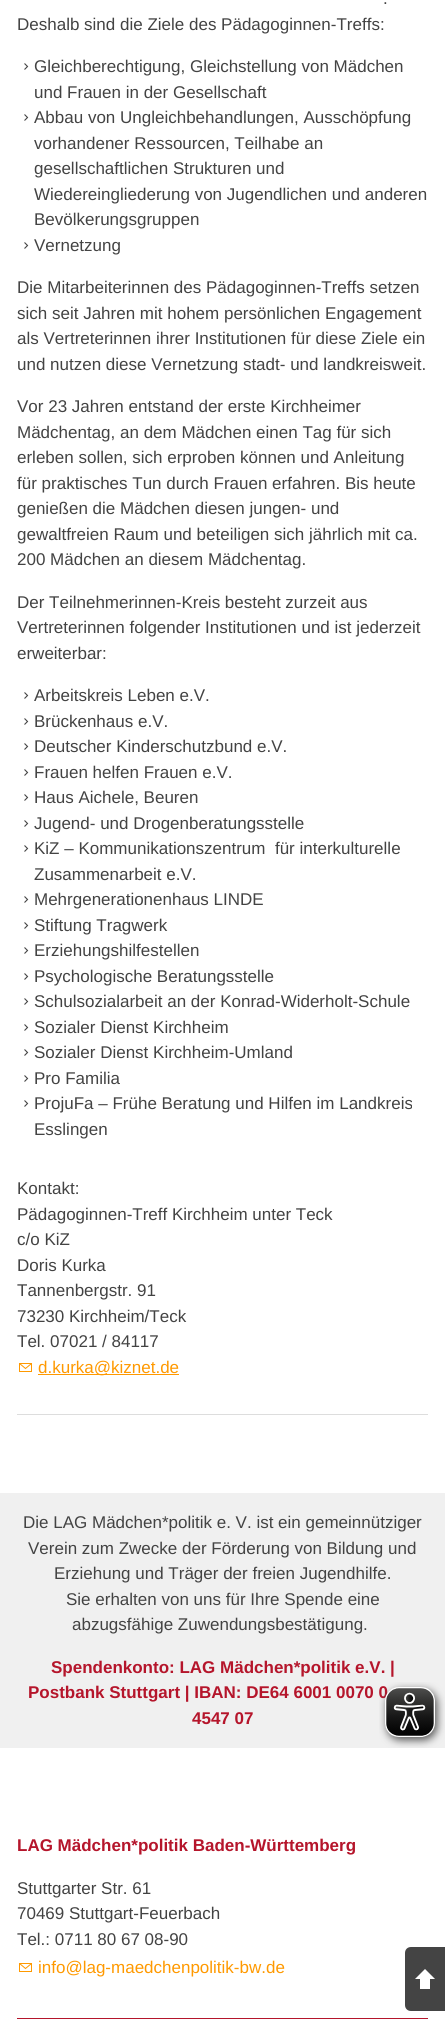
#include <cairo/cairo.h>
#include <math.h>
#include <stddef.h>

typedef struct { double x, y; const char *s; } line_t;
typedef struct { double x, y, w, h; unsigned color; } box_t;
static cairo_t *cr;

static void rgb(unsigned color)
{
	cairo_set_source_rgb(cr, (color >> 16) / 255.0, (color >> 8 & 255) / 255.0, (color & 255) / 255.0);
}

static void image(const char *path, double x, double y, double w, double h)
{
	cairo_surface_t *image = cairo_image_surface_create_from_png(path);
	cairo_save(cr);
	cairo_set_source_surface(cr, image, x, y);
	cairo_rectangle(cr, x, y, w, h);
	cairo_fill(cr);
	cairo_restore(cr);
	cairo_surface_destroy(image);
}

int main(void) {
	cairo_surface_t *surface = cairo_image_surface_create(CAIRO_FORMAT_RGB24, 445, 2043);
	cr = cairo_create(surface);
	cairo_font_options_t *options = cairo_font_options_create();
	cairo_font_options_set_hint_metrics(options, CAIRO_HINT_METRICS_OFF);
	cairo_font_options_set_hint_style(options, CAIRO_HINT_STYLE_NONE);
	cairo_set_font_options(cr, options);
	cairo_set_miter_limit(cr, 4);
	rgb(0xffffff);
	cairo_paint(cr);
	cairo_new_path(cr);
	cairo_move_to(cr, 24.5, 63.5);
	cairo_line_to(cr, 27.5, 66.5);
	cairo_line_to(cr, 24.5, 69.5);
	rgb(0x434343);
	cairo_set_line_width(cr, 1.1);
	cairo_stroke(cr);
	cairo_new_path(cr);
	cairo_move_to(cr, 24.5, 114.5);
	cairo_line_to(cr, 27.5, 117.5);
	cairo_line_to(cr, 24.5, 120.5);
	cairo_stroke(cr);
	cairo_new_path(cr);
	cairo_move_to(cr, 24.5, 242.5);
	cairo_line_to(cr, 27.5, 245.5);
	cairo_line_to(cr, 24.5, 248.5);
	cairo_stroke(cr);
	cairo_new_path(cr);
	cairo_move_to(cr, 24.5, 692.5);
	cairo_line_to(cr, 27.5, 695.5);
	cairo_line_to(cr, 24.5, 698.5);
	cairo_stroke(cr);
	cairo_new_path(cr);
	cairo_move_to(cr, 24.5, 718.5);
	cairo_line_to(cr, 27.5, 721.5);
	cairo_line_to(cr, 24.5, 724.5);
	cairo_stroke(cr);
	cairo_new_path(cr);
	cairo_move_to(cr, 24.5, 743.5);
	cairo_line_to(cr, 27.5, 746.5);
	cairo_line_to(cr, 24.5, 749.5);
	cairo_stroke(cr);
	cairo_new_path(cr);
	cairo_move_to(cr, 24.5, 769.5);
	cairo_line_to(cr, 27.5, 772.5);
	cairo_line_to(cr, 24.5, 775.5);
	cairo_stroke(cr);
	cairo_new_path(cr);
	cairo_move_to(cr, 24.5, 794.5);
	cairo_line_to(cr, 27.5, 797.5);
	cairo_line_to(cr, 24.5, 800.5);
	cairo_stroke(cr);
	cairo_new_path(cr);
	cairo_move_to(cr, 24.5, 820.5);
	cairo_line_to(cr, 27.5, 823.5);
	cairo_line_to(cr, 24.5, 826.5);
	cairo_stroke(cr);
	cairo_new_path(cr);
	cairo_move_to(cr, 24.5, 845.5);
	cairo_line_to(cr, 27.5, 848.5);
	cairo_line_to(cr, 24.5, 851.5);
	cairo_stroke(cr);
	cairo_new_path(cr);
	cairo_move_to(cr, 24.5, 896.5);
	cairo_line_to(cr, 27.5, 899.5);
	cairo_line_to(cr, 24.5, 902.5);
	cairo_stroke(cr);
	cairo_new_path(cr);
	cairo_move_to(cr, 24.5, 922.5);
	cairo_line_to(cr, 27.5, 925.5);
	cairo_line_to(cr, 24.5, 928.5);
	cairo_stroke(cr);
	cairo_new_path(cr);
	cairo_move_to(cr, 24.5, 947.5);
	cairo_line_to(cr, 27.5, 950.5);
	cairo_line_to(cr, 24.5, 953.5);
	cairo_stroke(cr);
	cairo_new_path(cr);
	cairo_move_to(cr, 24.5, 973.5);
	cairo_line_to(cr, 27.5, 976.5);
	cairo_line_to(cr, 24.5, 979.5);
	cairo_stroke(cr);
	cairo_new_path(cr);
	cairo_move_to(cr, 24.5, 998.5);
	cairo_line_to(cr, 27.5, 1001.5);
	cairo_line_to(cr, 24.5, 1004.5);
	cairo_stroke(cr);
	cairo_new_path(cr);
	cairo_move_to(cr, 24.5, 1024.5);
	cairo_line_to(cr, 27.5, 1027.5);
	cairo_line_to(cr, 24.5, 1030.5);
	cairo_stroke(cr);
	cairo_new_path(cr);
	cairo_move_to(cr, 24.5, 1049.5);
	cairo_line_to(cr, 27.5, 1052.5);
	cairo_line_to(cr, 24.5, 1055.5);
	cairo_stroke(cr);
	cairo_new_path(cr);
	cairo_move_to(cr, 24.5, 1075.5);
	cairo_line_to(cr, 27.5, 1078.5);
	cairo_line_to(cr, 24.5, 1081.5);
	cairo_stroke(cr);
	cairo_new_path(cr);
	cairo_move_to(cr, 24.5, 1100.5);
	cairo_line_to(cr, 27.5, 1103.5);
	cairo_line_to(cr, 24.5, 1106.5);
	cairo_stroke(cr);
	image("img/1.png", 19, 1363, 13, 9);
	{
		static const box_t items[] = {
			{38, 1374, 141, 1, 0xff9900},
			{17, 1414, 411, 1, 0xdddddd},
			{0, 1493, 445, 255, 0xf0f0f0},
		};
		for (size_t i = 0; i < sizeof items / sizeof *items; i++) {
			rgb(items[i].color);
			cairo_rectangle(cr, items[i].x, items[i].y, items[i].w, items[i].h);
			cairo_fill(cr);
		}
	}
	image("img/1.png", 19, 1963, 13, 9);
	rgb(0xb5152b);
	cairo_rectangle(cr, 17, 2018, 411, 1);
	cairo_fill(cr);
	rgb(0x444444);
	cairo_new_path(cr);
	cairo_move_to(cr, 411, 1947);
	cairo_line_to(cr, 445, 1947);
	cairo_line_to(cr, 445, 2011);
	cairo_line_to(cr, 411, 2011);
	cairo_curve_to(cr, 407.5, 2011, 405, 2008.5, 405, 2005);
	cairo_line_to(cr, 405, 1953);
	cairo_curve_to(cr, 405, 1949.5, 407.5, 1947, 411, 1947);
	cairo_close_path(cr);
	cairo_fill(cr);
	rgb(0xffffff);
	cairo_new_path(cr);
	cairo_move_to(cr, 435, 1979);
	cairo_line_to(cr, 415, 1979);
	cairo_line_to(cr, 425, 1969);
	cairo_close_path(cr);
	cairo_fill(cr);
	cairo_rectangle(cr, 420, 1979, 10, 10);
	cairo_fill(cr);
	cairo_select_font_face(cr, "Liberation Sans", CAIRO_FONT_SLANT_NORMAL, CAIRO_FONT_WEIGHT_NORMAL);
	cairo_set_font_size(cr, 17);
	rgb(0x434343);
	{
		static const line_t items[] = {
			{383, 4, "."},
			{17, 30, "Deshalb sind die Ziele des Pädagoginnen-Treffs:"},
			{34, 72, "Gleichberechtigung, Gleichstellung von Mädchen"},
			{34, 98, "und Frauen in der Gesellschaft"},
			{34, 123, "Abbau von Ungleichbehandlungen, Ausschöpfung"},
			{34, 149, "vorhandener Ressourcen, Teilhabe an"},
			{34, 174, "gesellschaftlichen Strukturen und"},
			{34, 200, "Wiedereingliederung von Jugendlichen und anderen"},
			{34, 225, "Bevölkerungsgruppen"},
			{34, 251, "Vernetzung"},
			{17, 293, "Die Mitarbeiterinnen des Pädagoginnen-Treffs setzen"},
			{17, 319, "sich seit Jahren mit hohem persönlichen Engagement"},
			{17, 344, "als Vertreterinnen ihrer Institutionen für diese Ziele ein"},
			{17, 370, "und nutzen diese Vernetzung stadt- und landkreisweit."},
			{17, 412, "Vor 23 Jahren entstand der erste Kirchheimer"},
			{17, 438, "Mädchentag, an dem Mädchen einen Tag für sich"},
			{17, 463, "erleben sollen, sich erproben können und Anleitung"},
			{17, 489, "für praktisches Tun durch Frauen erfahren. Bis heute"},
			{17, 514, "genießen die Mädchen diesen jungen- und"},
			{17, 540, "gewaltfreien Raum und beteiligen sich jährlich mit ca."},
			{17, 565, "200 Mädchen an diesem Mädchentag."},
			{17, 608, "Der Teilnehmerinnen-Kreis besteht zurzeit aus"},
			{17, 633, "Vertreterinnen folgender Institutionen und ist jederzeit"},
			{17, 659, "erweiterbar:"},
			{34, 701, "Arbeitskreis Leben e.V."},
			{34, 727, "Brückenhaus e.V."},
			{34, 752, "Deutscher Kinderschutzbund e.V."},
			{34, 778, "Frauen helfen Frauen e.V."},
			{34, 803, "Haus Aichele, Beuren"},
			{34, 829, "Jugend- und Drogenberatungsstelle"},
			{34, 854, "KiZ – Kommunikationszentrum  für interkulturelle"},
			{34, 880, "Zusammenarbeit e.V."},
			{34, 905, "Mehrgenerationenhaus LINDE"},
			{34, 931, "Stiftung Tragwerk"},
			{34, 956, "Erziehungshilfestellen"},
			{34, 982, "Psychologische Beratungsstelle"},
			{34, 1007, "Schulsozialarbeit an der Konrad-Widerholt-Schule"},
			{34, 1033, "Sozialer Dienst Kirchheim"},
			{34, 1058, "Sozialer Dienst Kirchheim-Umland"},
			{34, 1084, "Pro Familia"},
			{34, 1109, "ProjuFa – Frühe Beratung und Hilfen im Landkreis"},
			{34, 1135, "Esslingen"},
			{17, 1194, "Kontakt:"},
			{17, 1220, "Pädagoginnen-Treff Kirchheim unter Teck"},
			{17, 1245, "c/o KiZ"},
			{17, 1271, "Doris Kurka"},
			{17, 1296, "Tannenbergstr. 91"},
			{17, 1322, "73230 Kirchheim/Teck"},
			{17, 1347, "Tel. 07021 / 84117"},
		};
		for (size_t i = 0; i < sizeof items / sizeof *items; i++) {
			cairo_move_to(cr, items[i].x, items[i].y);
			cairo_show_text(cr, items[i].s);
		}
	}
	rgb(0xff9900);
	cairo_move_to(cr, 38, 1373);
	cairo_show_text(cr, "d.kurka@kiznet.de");
	rgb(0x434343);
	{
		static const line_t items[] = {
			{23, 1528, "Die LAG Mädchen*politik e. V. ist ein gemeinnütziger"},
			{28, 1554, "Verein zum Zwecke der Förderung von Bildung und"},
			{54, 1579, "Erziehung und Träger der freien Jugendhilfe."},
			{66, 1605, "Sie erhalten von uns für Ihre Spende eine"},
			{72, 1630, "abzugsfähige Zuwendungsbestätigung."},
		};
		for (size_t i = 0; i < sizeof items / sizeof *items; i++) {
			cairo_move_to(cr, items[i].x, items[i].y);
			cairo_show_text(cr, items[i].s);
		}
	}
	cairo_select_font_face(cr, "Liberation Sans", CAIRO_FONT_SLANT_NORMAL, CAIRO_FONT_WEIGHT_BOLD);
	rgb(0xb5152b);
	{
		static const line_t items[] = {
			{51, 1673, "Spendenkonto: LAG Mädchen*politik e.V. |"},
			{28, 1698, "Postbank Stuttgart | IBAN: DE64 6001 0070 0"},
			{192, 1724, "4547 07"},
			{17, 1851, "LAG Mädchen*politik Baden-Württemberg"},
		};
		for (size_t i = 0; i < sizeof items / sizeof *items; i++) {
			cairo_move_to(cr, items[i].x, items[i].y);
			cairo_show_text(cr, items[i].s);
		}
	}
	cairo_select_font_face(cr, "Liberation Sans", CAIRO_FONT_SLANT_NORMAL, CAIRO_FONT_WEIGHT_NORMAL);
	rgb(0x434343);
	{
		static const line_t items[] = {
			{17, 1894, "Stuttgarter Str. 61"},
			{17, 1919, "70469 Stuttgart-Feuerbach"},
			{17, 1945, "Tel.: 0711 80 67 08-90"},
		};
		for (size_t i = 0; i < sizeof items / sizeof *items; i++) {
			cairo_move_to(cr, items[i].x, items[i].y);
			cairo_show_text(cr, items[i].s);
		}
	}
	rgb(0xff9900);
	cairo_move_to(cr, 38, 1973);
	cairo_show_text(cr, "info@lag-maedchenpolitik-bw.de");
	image("img/2.png", 379, 1682, 66, 66);
	cairo_surface_write_to_png(surface, "page.png");
	cairo_font_options_destroy(options);
	cairo_destroy(cr);
	cairo_surface_destroy(surface);
	return 0;
}
